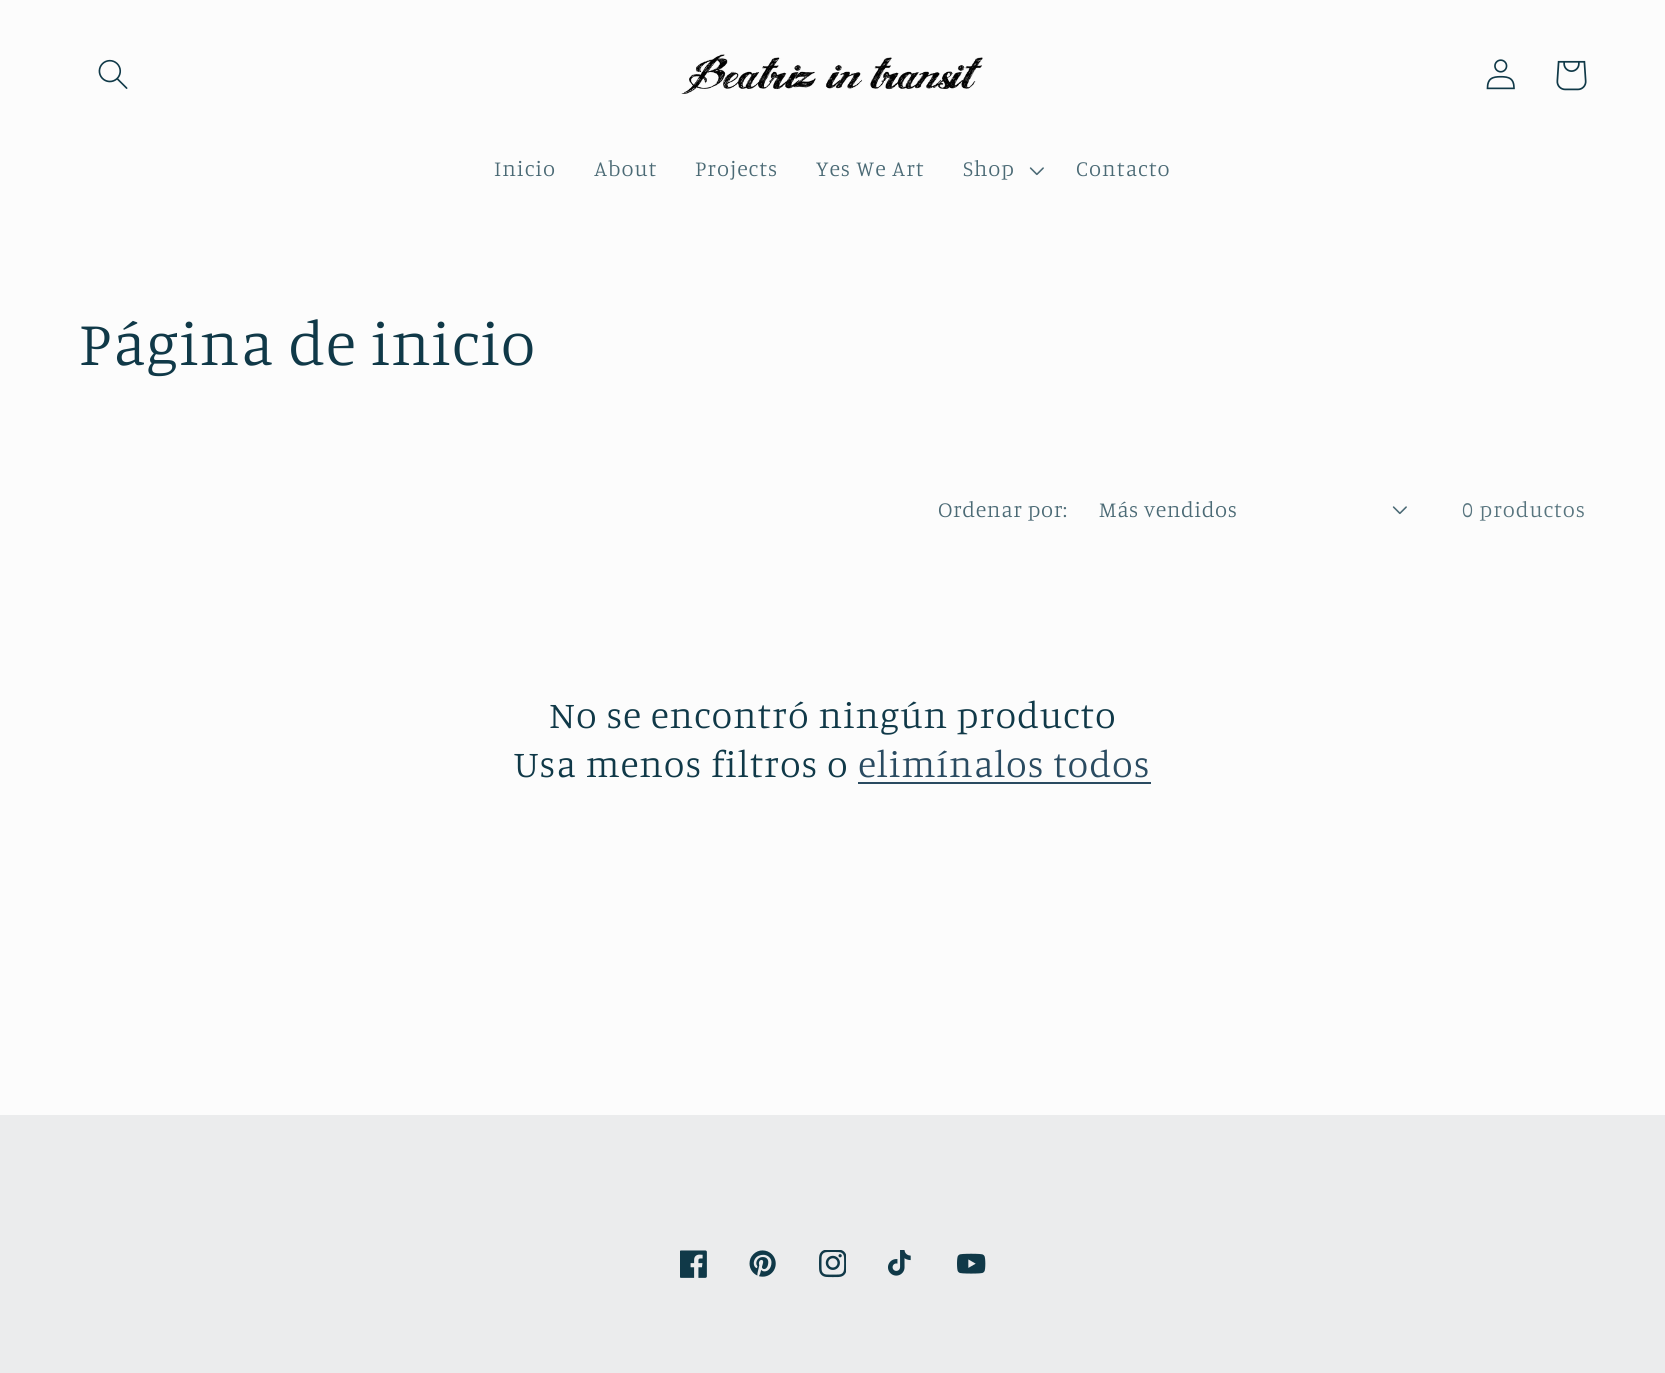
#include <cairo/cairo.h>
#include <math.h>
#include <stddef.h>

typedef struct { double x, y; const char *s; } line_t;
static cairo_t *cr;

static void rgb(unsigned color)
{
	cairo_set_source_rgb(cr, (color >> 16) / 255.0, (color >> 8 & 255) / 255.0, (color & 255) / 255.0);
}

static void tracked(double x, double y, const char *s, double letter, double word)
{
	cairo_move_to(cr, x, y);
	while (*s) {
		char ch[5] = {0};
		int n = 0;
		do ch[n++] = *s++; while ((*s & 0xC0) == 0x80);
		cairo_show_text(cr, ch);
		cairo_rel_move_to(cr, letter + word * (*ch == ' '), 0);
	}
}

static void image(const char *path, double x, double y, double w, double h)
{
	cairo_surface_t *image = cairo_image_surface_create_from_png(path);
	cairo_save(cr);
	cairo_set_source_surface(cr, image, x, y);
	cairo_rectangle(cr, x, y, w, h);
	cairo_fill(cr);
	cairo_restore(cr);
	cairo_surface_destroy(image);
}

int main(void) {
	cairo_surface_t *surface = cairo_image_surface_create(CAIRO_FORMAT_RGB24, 1665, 1373);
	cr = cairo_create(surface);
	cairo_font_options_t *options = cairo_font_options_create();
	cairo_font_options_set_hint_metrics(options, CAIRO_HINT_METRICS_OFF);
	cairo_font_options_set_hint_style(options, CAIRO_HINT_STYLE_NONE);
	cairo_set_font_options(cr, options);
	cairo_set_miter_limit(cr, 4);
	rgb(0xfcfcfc);
	cairo_paint(cr);
	image("img/1.png", 98, 59, 30, 30);
	image("img/2.png", 681, 54, 302, 40);
	image("img/3.png", 1486, 59, 29, 31);
	image("img/4.png", 1556, 60, 31, 31);
	image("img/5.png", 1029, 167, 15, 9);
	image("img/5.png", 1392, 506, 15, 9);
	rgb(0x2a4b61);
	cairo_rectangle(cr, 858, 782, 293, 2);
	cairo_fill(cr);
	rgb(0xebeced);
	cairo_rectangle(cr, 0, 1115, 1665, 258);
	cairo_fill(cr);
	image("img/6.png", 680, 1250, 27, 28);
	image("img/7.png", 749, 1250, 27, 27);
	image("img/8.png", 819, 1250, 27, 28);
	image("img/9.png", 888, 1250, 23, 26);
	image("img/10.png", 957, 1253, 29, 21);
	cairo_select_font_face(cr, "Manuale Light", CAIRO_FONT_SLANT_NORMAL, CAIRO_FONT_WEIGHT_NORMAL);
	cairo_set_font_size(cr, 22);
	rgb(0x4b6a75);
	{
		static const line_t items[] = {
			{494, 176, "Inicio"},
			{594, 176, "About"},
			{695, 176, "Projects"},
			{816, 176, "Yes We Art"},
			{963, 176, "Shop"},
			{1076, 176, "Contacto"},
		};
		for (size_t i = 0; i < sizeof items / sizeof *items; i++) {
			tracked(items[i].x, items[i].y, items[i].s, 0.95, 0);
		}
	}
	cairo_set_font_size(cr, 63);
	rgb(0x103948);
	tracked(79, 365, "Página de inicio", 0.95, 0);
	cairo_set_font_size(cr, 22);
	rgb(0x4b6a75);
	tracked(938, 517, "Ordenar por:", 0.6, 0);
	tracked(1099, 517, "Más vendidos", 0.6, 0);
	rgb(0x57747e);
	tracked(1462, 517, "0 productos", 0.95, 0);
	cairo_set_font_size(cr, 37.75);
	rgb(0x103948);
	tracked(549, 728, "No se encontró ningún producto", 0.95, 0);
	tracked(514, 777, "Usa menos filtros o", 0.95, 0);
	rgb(0x2a4b61);
	tracked(858, 777, "elimínalos todos", 0.95, 0);
	cairo_surface_write_to_png(surface, "page.png");
	cairo_font_options_destroy(options);
	cairo_destroy(cr);
	cairo_surface_destroy(surface);
	return 0;
}
